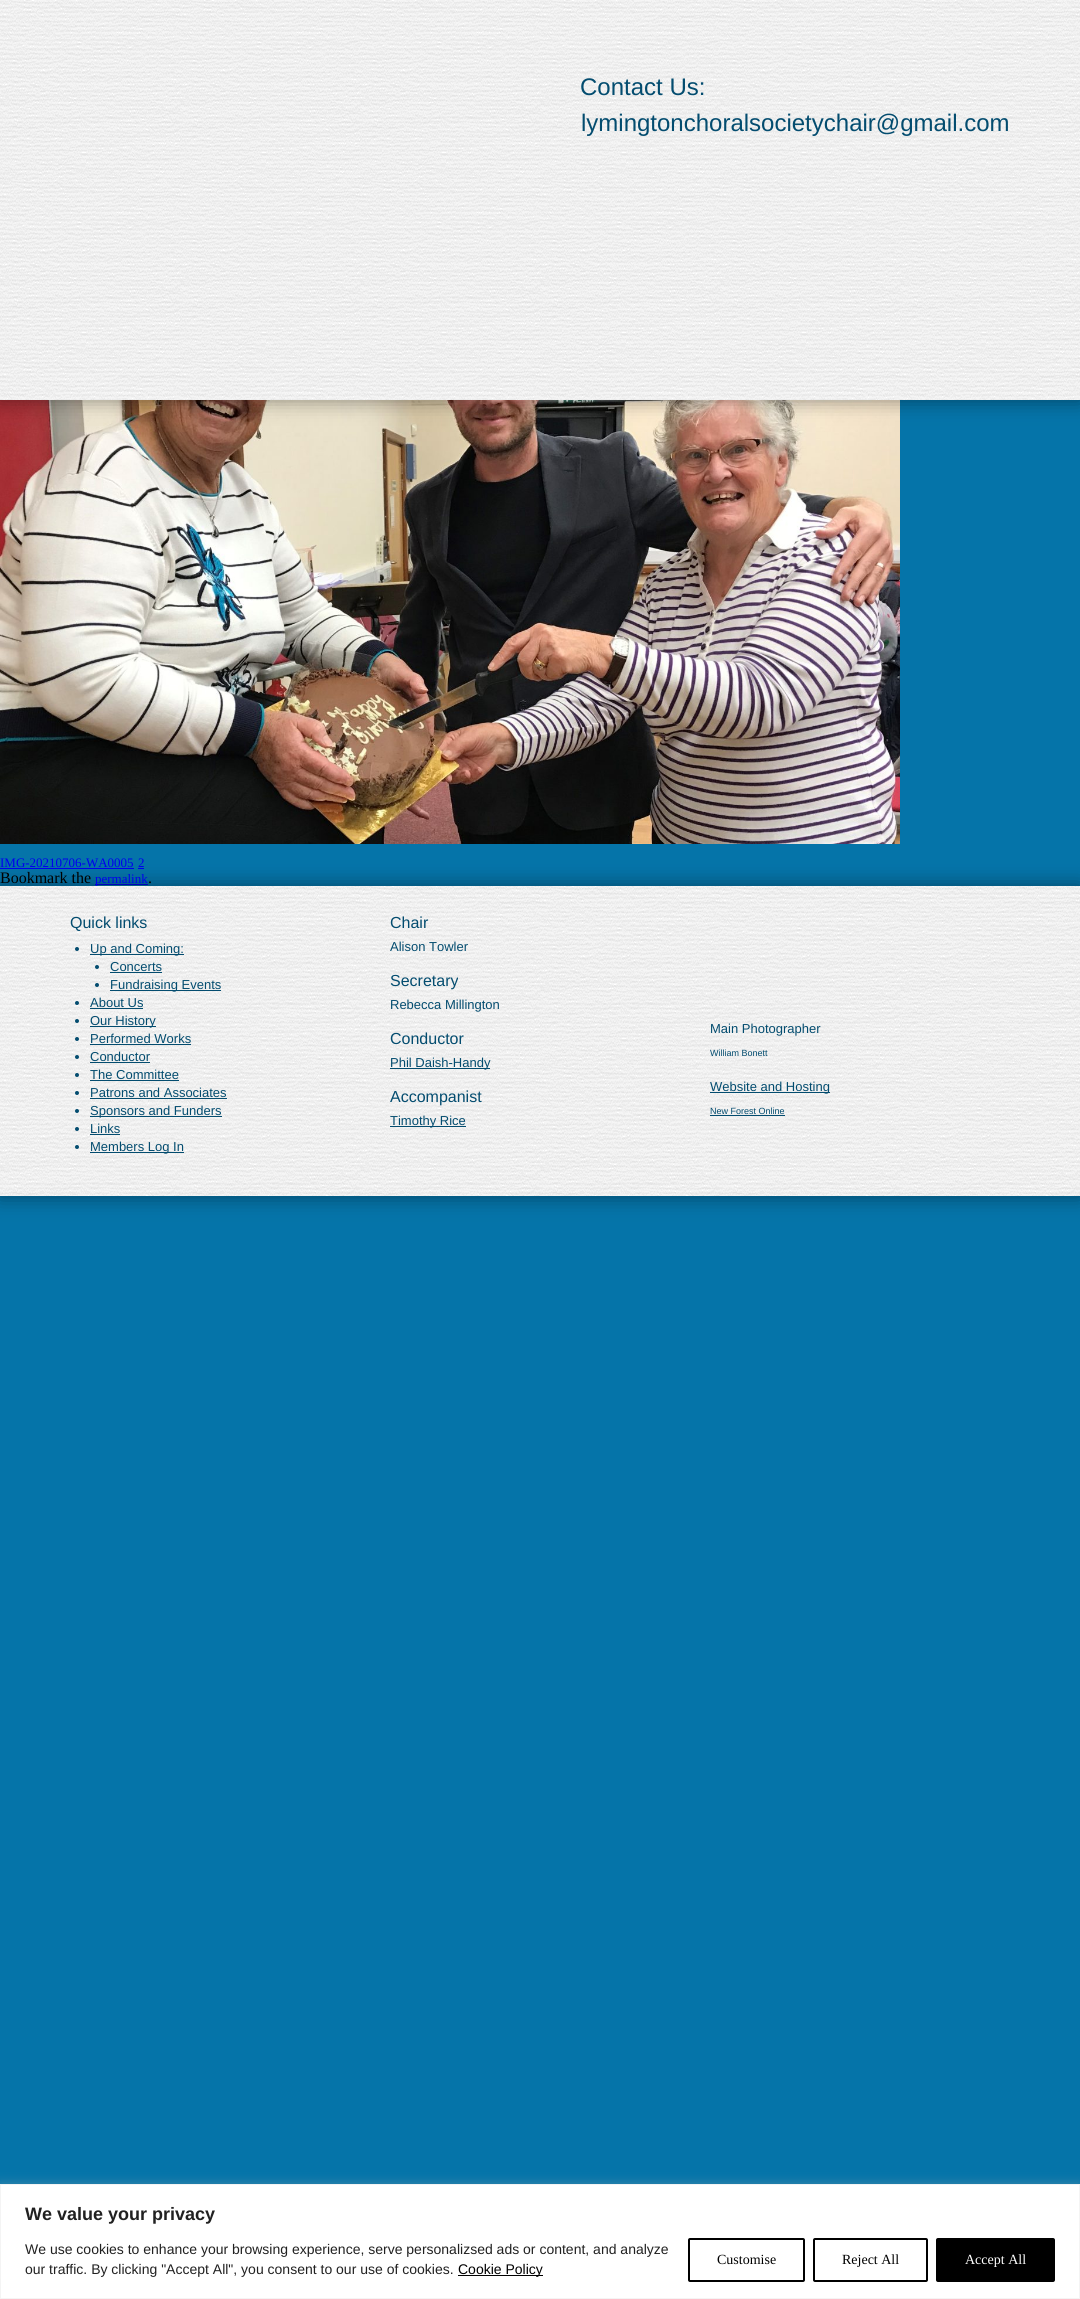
#include <cairo/cairo.h>
#include <math.h>
#include <stddef.h>

typedef struct { double x, y; const char *s; } line_t;
typedef struct { double x, y, w, h; unsigned color; } box_t;
static cairo_t *cr;

static void rgb(unsigned color)
{
	cairo_set_source_rgb(cr, (color >> 16) / 255.0, (color >> 8 & 255) / 255.0, (color & 255) / 255.0);
}

static void rrect(double x, double y, double w, double h, double r)
{
	cairo_new_sub_path(cr);
	cairo_arc(cr, x + w - r, y + h - r, r, 0, M_PI / 2);
	cairo_arc(cr, x + r, y + h - r, r, M_PI / 2, M_PI);
	cairo_arc(cr, x + r, y + r, r, M_PI, 1.5 * M_PI);
	cairo_arc(cr, x + w - r, y + r, r, 1.5 * M_PI, 2 * M_PI);
	cairo_close_path(cr);
}

static void soft_shadow(double x, double y, double w, double h, double r, double blur, double alpha)
{
	cairo_push_group_with_content(cr, CAIRO_CONTENT_ALPHA);
	cairo_set_operator(cr, CAIRO_OPERATOR_SOURCE);
	for (int i = 15; i >= -15 && fmin(w, h) + blur * i / 3 > 0; i -= 2) {
		double e = blur * i / 6;
		cairo_set_source_rgba(cr, 0, 0, 0, alpha * erfc((i - 1) / 8.5) / 2);
		rrect(x - e, y - e, w + 2 * e, h + 2 * e, fmax(0, fmin(r + e + blur * .6, fmin(w, h) / 2 + e)));
		cairo_fill(cr);
	}
	cairo_pattern_t *soft = cairo_pop_group(cr);
	cairo_mask(cr, soft);
	cairo_pattern_destroy(soft);
}

static void image(const char *path, double x, double y, double w, double h)
{
	cairo_surface_t *image = cairo_image_surface_create_from_png(path);
	cairo_save(cr);
	cairo_set_source_surface(cr, image, x, y);
	cairo_rectangle(cr, x, y, w, h);
	cairo_fill(cr);
	cairo_restore(cr);
	cairo_surface_destroy(image);
}

int main(void) {
	cairo_surface_t *surface = cairo_image_surface_create(CAIRO_FORMAT_RGB24, 1080, 2299);
	cr = cairo_create(surface);
	cairo_font_options_t *options = cairo_font_options_create();
	cairo_font_options_set_hint_metrics(options, CAIRO_HINT_METRICS_OFF);
	cairo_font_options_set_hint_style(options, CAIRO_HINT_STYLE_NONE);
	cairo_set_font_options(cr, options);
	cairo_set_miter_limit(cr, 4);
	rgb(0x0574a9);
	cairo_paint(cr);
	image("img/2.png", 0, 400, 900, 444);
	rgb(0x000000);
	soft_shadow(-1, -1, 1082, 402, 0, 10, 0.4);
	image("img/1.png", 0, 0, 1080, 400);
	{
		static const box_t items[] = {
			{0, 868, 134, 1, 0x0000ee},
			{138, 868, 6, 1, 0x0000ee},
			{95, 884, 53, 1, 0x0000ee},
		};
		for (size_t i = 0; i < sizeof items / sizeof *items; i++) {
			rgb(items[i].color);
			cairo_rectangle(cr, items[i].x, items[i].y, items[i].w, items[i].h);
			cairo_fill(cr);
		}
	}
	rgb(0x000000);
	soft_shadow(-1, 885, 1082, 312, 0, 10, 0.4);
	image("img/3.png", 0, 886, 1080, 310);
	rgb(0x034c6f);
	cairo_arc(cr, 77, 949, 2, 0, 2 * M_PI);
	cairo_fill(cr);
	cairo_rectangle(cr, 90, 954, 94, 1);
	cairo_fill(cr);
	cairo_arc(cr, 97, 967, 2, 0, 2 * M_PI);
	cairo_fill(cr);
	cairo_rectangle(cr, 110, 972, 52, 1);
	cairo_fill(cr);
	cairo_arc(cr, 97, 985, 2, 0, 2 * M_PI);
	cairo_fill(cr);
	cairo_rectangle(cr, 110, 990, 111, 1);
	cairo_fill(cr);
	cairo_arc(cr, 77, 1003, 2, 0, 2 * M_PI);
	cairo_fill(cr);
	cairo_rectangle(cr, 90, 1008, 53, 1);
	cairo_fill(cr);
	cairo_arc(cr, 77, 1021, 2, 0, 2 * M_PI);
	cairo_fill(cr);
	cairo_rectangle(cr, 90, 1026, 66, 1);
	cairo_fill(cr);
	cairo_arc(cr, 77, 1039, 2, 0, 2 * M_PI);
	cairo_fill(cr);
	cairo_rectangle(cr, 90, 1044, 101, 1);
	cairo_fill(cr);
	cairo_arc(cr, 77, 1057, 2, 0, 2 * M_PI);
	cairo_fill(cr);
	cairo_rectangle(cr, 90, 1062, 60, 1);
	cairo_fill(cr);
	cairo_arc(cr, 77, 1075, 2, 0, 2 * M_PI);
	cairo_fill(cr);
	cairo_rectangle(cr, 90, 1080, 89, 1);
	cairo_fill(cr);
	cairo_arc(cr, 77, 1093, 2, 0, 2 * M_PI);
	cairo_fill(cr);
	cairo_rectangle(cr, 90, 1098, 137, 1);
	cairo_fill(cr);
	cairo_arc(cr, 77, 1111, 2, 0, 2 * M_PI);
	cairo_fill(cr);
	cairo_rectangle(cr, 90, 1116, 132, 1);
	cairo_fill(cr);
	cairo_arc(cr, 77, 1129, 2, 0, 2 * M_PI);
	cairo_fill(cr);
	cairo_rectangle(cr, 90, 1134, 30, 1);
	cairo_fill(cr);
	cairo_arc(cr, 77, 1147, 2, 0, 2 * M_PI);
	cairo_fill(cr);
	{
		static const box_t items[] = {
			{90, 1152, 94, 1, 0x034c6f},
			{390, 1068, 100, 1, 0x034c6f},
			{390, 1126, 76, 1, 0x034c6f},
			{710, 1092, 120, 1, 0x034c6f},
			{710, 1115, 75, 1, 0x034c6f},
		};
		for (size_t i = 0; i < sizeof items / sizeof *items; i++) {
			rgb(items[i].color);
			cairo_rectangle(cr, items[i].x, items[i].y, items[i].w, items[i].h);
			cairo_fill(cr);
		}
	}
	rgb(0xacabab);
	soft_shadow(0, 2183, 1080, 115, 0, 5, 0.3);
	rgb(0xffffff);
	cairo_rectangle(cr, 0.5, 2184.5, 1079, 114);
	cairo_fill_preserve(cr);
	rgb(0xf4f4f4);
	cairo_set_line_width(cr, 1);
	cairo_stroke(cr);
	rgb(0x000000);
	cairo_rectangle(cr, 458, 2275, 85, 1);
	cairo_fill(cr);
	rrect(689, 2239, 115, 42, 1);
	cairo_set_line_width(cr, 2);
	cairo_stroke(cr);
	rrect(814, 2239, 113, 42, 1);
	cairo_stroke(cr);
	rrect(937, 2239, 117, 42, 1);
	cairo_fill_preserve(cr);
	cairo_stroke(cr);
	cairo_select_font_face(cr, "Liberation Sans", CAIRO_FONT_SLANT_NORMAL, CAIRO_FONT_WEIGHT_NORMAL);
	cairo_set_font_size(cr, 24);
	rgb(0x034c6f);
	cairo_move_to(cr, 580, 95);
	cairo_show_text(cr, "Contact Us:");
	cairo_move_to(cr, 581, 131);
	cairo_show_text(cr, "lymingtonchoralsocietychair@gmail.com");
	cairo_select_font_face(cr, "Liberation Serif", CAIRO_FONT_SLANT_NORMAL, CAIRO_FONT_WEIGHT_NORMAL);
	cairo_set_font_size(cr, 13);
	rgb(0x0000ee);
	cairo_move_to(cr, 0, 867);
	cairo_show_text(cr, "IMG-20210706-WA0005");
	cairo_move_to(cr, 138, 867);
	cairo_show_text(cr, "2");
	cairo_set_font_size(cr, 16);
	rgb(0x000000);
	cairo_move_to(cr, 0, 883);
	cairo_show_text(cr, "Bookmark the");
	cairo_set_font_size(cr, 13);
	rgb(0x0000ee);
	cairo_move_to(cr, 95, 883);
	cairo_show_text(cr, "permalink");
	cairo_set_font_size(cr, 16);
	rgb(0x000000);
	cairo_move_to(cr, 148, 883);
	cairo_show_text(cr, ".");
	cairo_select_font_face(cr, "Liberation Sans", CAIRO_FONT_SLANT_NORMAL, CAIRO_FONT_WEIGHT_NORMAL);
	rgb(0x034c6f);
	cairo_move_to(cr, 70, 928);
	cairo_show_text(cr, "Quick links");
	cairo_set_font_size(cr, 13);
	{
		static const line_t items[] = {
			{90, 953, "Up and Coming:"},
			{110, 971, "Concerts"},
			{110, 989, "Fundraising Events"},
			{90, 1007, "About Us"},
			{90, 1025, "Our History"},
			{90, 1043, "Performed Works"},
			{90, 1061, "Conductor"},
			{90, 1079, "The Committee"},
			{90, 1097, "Patrons and Associates"},
			{90, 1115, "Sponsors and Funders"},
			{90, 1133, "Links"},
			{90, 1151, "Members Log In"},
		};
		for (size_t i = 0; i < sizeof items / sizeof *items; i++) {
			cairo_move_to(cr, items[i].x, items[i].y);
			cairo_show_text(cr, items[i].s);
		}
	}
	cairo_set_font_size(cr, 16);
	cairo_move_to(cr, 390, 928);
	cairo_show_text(cr, "Chair");
	cairo_set_font_size(cr, 13);
	cairo_move_to(cr, 390, 951);
	cairo_show_text(cr, "Alison Towler");
	cairo_set_font_size(cr, 16);
	cairo_move_to(cr, 390, 986);
	cairo_show_text(cr, "Secretary");
	cairo_set_font_size(cr, 13);
	cairo_move_to(cr, 390, 1009);
	cairo_show_text(cr, "Rebecca Millington");
	cairo_set_font_size(cr, 16);
	cairo_move_to(cr, 390, 1044);
	cairo_show_text(cr, "Conductor");
	cairo_set_font_size(cr, 13);
	cairo_move_to(cr, 390, 1067);
	cairo_show_text(cr, "Phil Daish-Handy");
	cairo_set_font_size(cr, 16);
	cairo_move_to(cr, 390, 1102);
	cairo_show_text(cr, "Accompanist");
	cairo_set_font_size(cr, 13);
	cairo_move_to(cr, 390, 1125);
	cairo_show_text(cr, "Timothy Rice");
	cairo_move_to(cr, 710, 1033);
	cairo_show_text(cr, "Main Photographer");
	cairo_set_font_size(cr, 9);
	cairo_move_to(cr, 710, 1056);
	cairo_show_text(cr, "William Bonett");
	cairo_set_font_size(cr, 13);
	cairo_move_to(cr, 710, 1091);
	cairo_show_text(cr, "Website and Hosting");
	cairo_set_font_size(cr, 9);
	cairo_move_to(cr, 710, 1114);
	cairo_show_text(cr, "New Forest Online");
	cairo_select_font_face(cr, "Liberation Sans", CAIRO_FONT_SLANT_NORMAL, CAIRO_FONT_WEIGHT_BOLD);
	cairo_set_font_size(cr, 18);
	rgb(0x212121);
	cairo_move_to(cr, 25, 2220);
	cairo_show_text(cr, "We value your privacy");
	cairo_select_font_face(cr, "Liberation Sans", CAIRO_FONT_SLANT_NORMAL, CAIRO_FONT_WEIGHT_NORMAL);
	cairo_set_font_size(cr, 14);
	cairo_move_to(cr, 25, 2254);
	cairo_show_text(cr, "We use cookies to enhance your browsing experience, serve personalizsed ads or content, and analyze");
	cairo_move_to(cr, 25, 2274);
	cairo_show_text(cr, "our traffic. By clicking \"Accept All\", you consent to our use of cookies.");
	rgb(0x000000);
	cairo_move_to(cr, 458, 2274);
	cairo_show_text(cr, "Cookie Policy");
	cairo_select_font_face(cr, "Liberation Serif", CAIRO_FONT_SLANT_NORMAL, CAIRO_FONT_WEIGHT_NORMAL);
	cairo_move_to(cr, 717, 2264);
	cairo_show_text(cr, "Customise");
	cairo_move_to(cr, 842, 2264);
	cairo_show_text(cr, "Reject All");
	rgb(0xffffff);
	cairo_move_to(cr, 965, 2264);
	cairo_show_text(cr, "Accept All");
	cairo_surface_write_to_png(surface, "page.png");
	cairo_font_options_destroy(options);
	cairo_destroy(cr);
	cairo_surface_destroy(surface);
	return 0;
}
